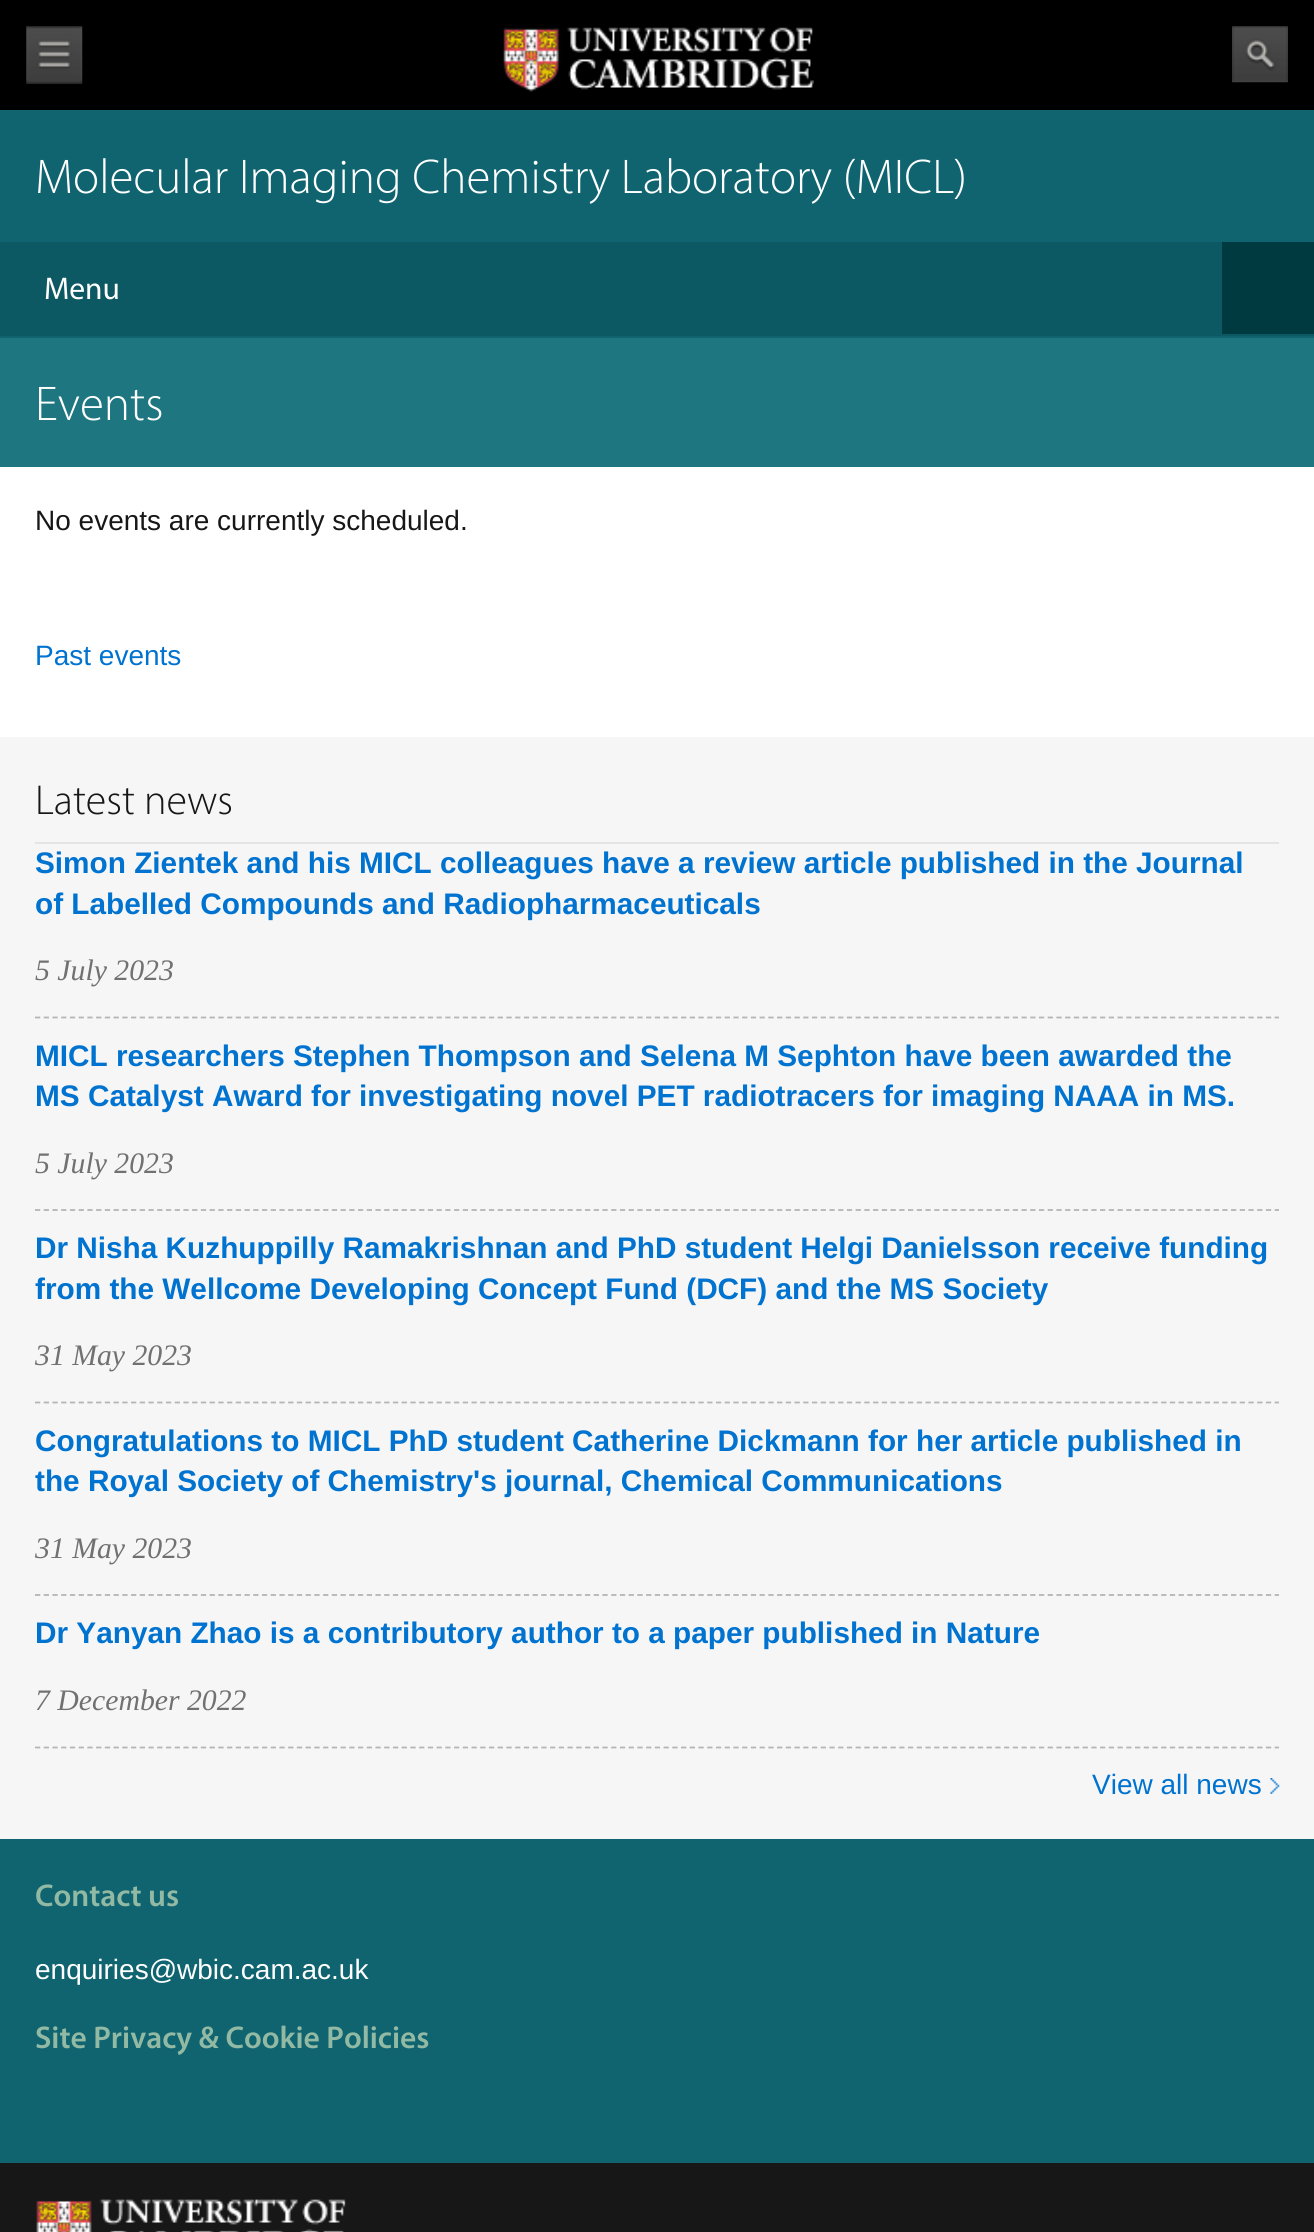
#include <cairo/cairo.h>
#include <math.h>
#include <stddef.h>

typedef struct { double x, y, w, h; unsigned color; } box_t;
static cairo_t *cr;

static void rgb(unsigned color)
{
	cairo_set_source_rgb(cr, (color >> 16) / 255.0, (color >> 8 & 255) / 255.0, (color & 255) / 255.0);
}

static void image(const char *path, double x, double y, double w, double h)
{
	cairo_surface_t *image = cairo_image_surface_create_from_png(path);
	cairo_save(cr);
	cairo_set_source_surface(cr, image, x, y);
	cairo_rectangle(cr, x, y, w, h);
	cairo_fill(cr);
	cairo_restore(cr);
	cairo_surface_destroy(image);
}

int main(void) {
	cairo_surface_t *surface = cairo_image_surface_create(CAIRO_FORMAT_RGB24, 1314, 2232);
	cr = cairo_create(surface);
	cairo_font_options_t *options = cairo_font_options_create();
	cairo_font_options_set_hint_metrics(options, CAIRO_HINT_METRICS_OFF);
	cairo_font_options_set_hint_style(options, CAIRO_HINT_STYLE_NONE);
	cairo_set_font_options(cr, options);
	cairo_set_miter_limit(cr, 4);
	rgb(0x000000);
	cairo_paint(cr);
	image("img/1.png", 26, 26, 57, 58);
	image("img/2.png", 503, 27, 311, 65);
	image("img/3.png", 1232, 26, 56, 57);
	{
		static const box_t items[] = {
			{0, 110, 1314, 132, 0x106470},
			{0, 242, 1314, 94, 0x0c5963},
			{0, 336, 1314, 2, 0x106470},
			{1222, 242, 92, 92, 0x003a41},
			{0, 338, 1314, 129, 0x1e7680},
			{0, 467, 1314, 270, 0xffffff},
			{0, 737, 1314, 1102, 0xf6f6f6},
			{35, 842, 1244, 2, 0xe4e4e4},
		};
		for (size_t i = 0; i < sizeof items / sizeof *items; i++) {
			rgb(items[i].color);
			cairo_rectangle(cr, items[i].x, items[i].y, items[i].w, items[i].h);
			cairo_fill(cr);
		}
	}
	cairo_new_path(cr);
	cairo_move_to(cr, 35, 1017.5);
	cairo_line_to(cr, 1279, 1017.5);
	rgb(0xb5b5b5);
	cairo_set_line_width(cr, 1.8);
	cairo_set_dash(cr, (double[]){5.25, 3.48}, 2, 0);
	cairo_stroke(cr);
	cairo_new_path(cr);
	cairo_move_to(cr, 35, 1210);
	cairo_line_to(cr, 1279, 1210);
	cairo_stroke(cr);
	cairo_new_path(cr);
	cairo_move_to(cr, 35, 1402.5);
	cairo_line_to(cr, 1279, 1402.5);
	cairo_stroke(cr);
	cairo_new_path(cr);
	cairo_move_to(cr, 35, 1595);
	cairo_line_to(cr, 1279, 1595);
	cairo_stroke(cr);
	cairo_new_path(cr);
	cairo_move_to(cr, 35, 1747.5);
	cairo_line_to(cr, 1279, 1747.5);
	cairo_stroke(cr);
	image("img/4.png", 1270, 1778, 10, 16);
	rgb(0x106470);
	cairo_rectangle(cr, 0, 1839, 1314, 324);
	cairo_fill(cr);
	rgb(0x171717);
	cairo_rectangle(cr, 0, 2163, 1314, 69);
	cairo_fill(cr);
	image("img/5.png", 36, 2199, 310, 33);
	cairo_select_font_face(cr, "Myriad Light", CAIRO_FONT_SLANT_NORMAL, CAIRO_FONT_WEIGHT_NORMAL);
	cairo_set_font_size(cr, 49);
	rgb(0xffffff);
	cairo_move_to(cr, 35, 193);
	cairo_show_text(cr, "Molecular Imaging Chemistry Laboratory (MICL)");
	cairo_select_font_face(cr, "Myriad", CAIRO_FONT_SLANT_NORMAL, CAIRO_FONT_WEIGHT_NORMAL);
	cairo_set_font_size(cr, 31.5);
	cairo_move_to(cr, 44, 299);
	cairo_show_text(cr, "Menu");
	cairo_select_font_face(cr, "Myriad Light", CAIRO_FONT_SLANT_NORMAL, CAIRO_FONT_WEIGHT_NORMAL);
	cairo_set_font_size(cr, 49);
	cairo_move_to(cr, 35, 420);
	cairo_show_text(cr, "Events");
	cairo_select_font_face(cr, "Liberation Sans", CAIRO_FONT_SLANT_NORMAL, CAIRO_FONT_WEIGHT_NORMAL);
	cairo_set_font_size(cr, 28);
	rgb(0x171717);
	cairo_move_to(cr, 35, 530);
	cairo_show_text(cr, "No events are currently scheduled.");
	rgb(0x0072cf);
	cairo_move_to(cr, 35, 665);
	cairo_show_text(cr, "Past events");
	cairo_select_font_face(cr, "Myriad Light", CAIRO_FONT_SLANT_NORMAL, CAIRO_FONT_WEIGHT_NORMAL);
	cairo_set_font_size(cr, 42);
	rgb(0x171717);
	cairo_move_to(cr, 35, 814);
	cairo_show_text(cr, "Latest news");
	cairo_select_font_face(cr, "Liberation Sans", CAIRO_FONT_SLANT_NORMAL, CAIRO_FONT_WEIGHT_BOLD);
	cairo_set_font_size(cr, 29.75);
	rgb(0x0072cf);
	cairo_move_to(cr, 35, 873);
	cairo_show_text(cr, "Simon Zientek and his MICL colleagues have a review article published in the Journal");
	cairo_move_to(cr, 35, 914);
	cairo_show_text(cr, "of Labelled Compounds and Radiopharmaceuticals");
	cairo_select_font_face(cr, "Liberation Serif", CAIRO_FONT_SLANT_ITALIC, CAIRO_FONT_WEIGHT_NORMAL);
	rgb(0x717171);
	cairo_move_to(cr, 35, 980);
	cairo_show_text(cr, "5 July 2023");
	cairo_select_font_face(cr, "Liberation Sans", CAIRO_FONT_SLANT_NORMAL, CAIRO_FONT_WEIGHT_BOLD);
	rgb(0x0072cf);
	cairo_move_to(cr, 35, 1066);
	cairo_show_text(cr, "MICL researchers Stephen Thompson and Selena M Sephton have been awarded the");
	cairo_move_to(cr, 35, 1106);
	cairo_show_text(cr, "MS Catalyst Award for investigating novel PET radiotracers for imaging NAAA in MS.");
	cairo_select_font_face(cr, "Liberation Serif", CAIRO_FONT_SLANT_ITALIC, CAIRO_FONT_WEIGHT_NORMAL);
	rgb(0x717171);
	cairo_move_to(cr, 35, 1173);
	cairo_show_text(cr, "5 July 2023");
	cairo_select_font_face(cr, "Liberation Sans", CAIRO_FONT_SLANT_NORMAL, CAIRO_FONT_WEIGHT_BOLD);
	rgb(0x0072cf);
	cairo_move_to(cr, 35, 1258);
	cairo_show_text(cr, "Dr Nisha Kuzhuppilly Ramakrishnan and PhD student Helgi Danielsson receive funding");
	cairo_move_to(cr, 35, 1299);
	cairo_show_text(cr, "from the Wellcome Developing Concept Fund (DCF) and the MS Society");
	cairo_select_font_face(cr, "Liberation Serif", CAIRO_FONT_SLANT_ITALIC, CAIRO_FONT_WEIGHT_NORMAL);
	rgb(0x717171);
	cairo_move_to(cr, 35, 1365);
	cairo_show_text(cr, "31 May 2023");
	cairo_select_font_face(cr, "Liberation Sans", CAIRO_FONT_SLANT_NORMAL, CAIRO_FONT_WEIGHT_BOLD);
	rgb(0x0072cf);
	cairo_move_to(cr, 35, 1451);
	cairo_show_text(cr, "Congratulations to MICL PhD student Catherine Dickmann for her article published in");
	cairo_move_to(cr, 35, 1491);
	cairo_show_text(cr, "the Royal Society of Chemistry's journal, Chemical Communications");
	cairo_select_font_face(cr, "Liberation Serif", CAIRO_FONT_SLANT_ITALIC, CAIRO_FONT_WEIGHT_NORMAL);
	rgb(0x717171);
	cairo_move_to(cr, 35, 1558);
	cairo_show_text(cr, "31 May 2023");
	cairo_select_font_face(cr, "Liberation Sans", CAIRO_FONT_SLANT_NORMAL, CAIRO_FONT_WEIGHT_BOLD);
	rgb(0x0072cf);
	cairo_move_to(cr, 35, 1643);
	cairo_show_text(cr, "Dr Yanyan Zhao is a contributory author to a paper published in Nature");
	cairo_select_font_face(cr, "Liberation Serif", CAIRO_FONT_SLANT_ITALIC, CAIRO_FONT_WEIGHT_NORMAL);
	rgb(0x717171);
	cairo_move_to(cr, 35, 1710);
	cairo_show_text(cr, "7 December 2022");
	cairo_select_font_face(cr, "Liberation Sans", CAIRO_FONT_SLANT_NORMAL, CAIRO_FONT_WEIGHT_NORMAL);
	cairo_set_font_size(cr, 28);
	rgb(0x0072cf);
	cairo_move_to(cr, 1092, 1794);
	cairo_show_text(cr, "View all news");
	cairo_select_font_face(cr, "Myriad SemiBold", CAIRO_FONT_SLANT_NORMAL, CAIRO_FONT_WEIGHT_NORMAL);
	cairo_set_font_size(cr, 31.5);
	rgb(0x91b9a4);
	cairo_move_to(cr, 35, 1906);
	cairo_show_text(cr, "Contact us");
	cairo_select_font_face(cr, "Liberation Sans", CAIRO_FONT_SLANT_NORMAL, CAIRO_FONT_WEIGHT_NORMAL);
	cairo_set_font_size(cr, 28);
	rgb(0xffffff);
	cairo_move_to(cr, 35, 1979);
	cairo_show_text(cr, "enquiries@wbic.cam.ac.uk");
	cairo_select_font_face(cr, "Myriad SemiBold", CAIRO_FONT_SLANT_NORMAL, CAIRO_FONT_WEIGHT_NORMAL);
	cairo_set_font_size(cr, 31.5);
	rgb(0x91b9a4);
	cairo_move_to(cr, 35, 2048);
	cairo_show_text(cr, "Site Privacy & Cookie Policies");
	cairo_surface_write_to_png(surface, "page.png");
	cairo_font_options_destroy(options);
	cairo_destroy(cr);
	cairo_surface_destroy(surface);
	return 0;
}
